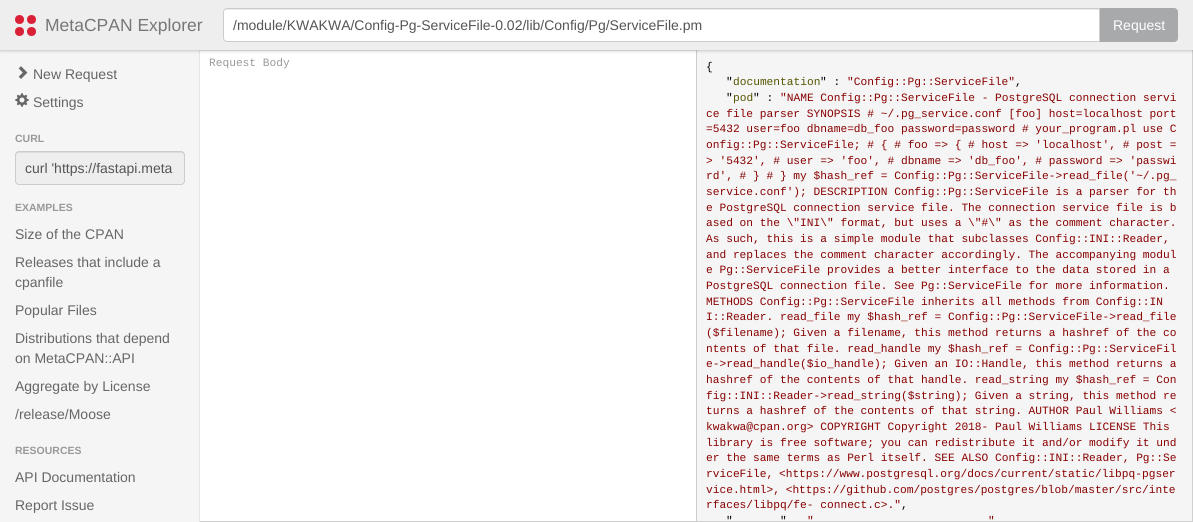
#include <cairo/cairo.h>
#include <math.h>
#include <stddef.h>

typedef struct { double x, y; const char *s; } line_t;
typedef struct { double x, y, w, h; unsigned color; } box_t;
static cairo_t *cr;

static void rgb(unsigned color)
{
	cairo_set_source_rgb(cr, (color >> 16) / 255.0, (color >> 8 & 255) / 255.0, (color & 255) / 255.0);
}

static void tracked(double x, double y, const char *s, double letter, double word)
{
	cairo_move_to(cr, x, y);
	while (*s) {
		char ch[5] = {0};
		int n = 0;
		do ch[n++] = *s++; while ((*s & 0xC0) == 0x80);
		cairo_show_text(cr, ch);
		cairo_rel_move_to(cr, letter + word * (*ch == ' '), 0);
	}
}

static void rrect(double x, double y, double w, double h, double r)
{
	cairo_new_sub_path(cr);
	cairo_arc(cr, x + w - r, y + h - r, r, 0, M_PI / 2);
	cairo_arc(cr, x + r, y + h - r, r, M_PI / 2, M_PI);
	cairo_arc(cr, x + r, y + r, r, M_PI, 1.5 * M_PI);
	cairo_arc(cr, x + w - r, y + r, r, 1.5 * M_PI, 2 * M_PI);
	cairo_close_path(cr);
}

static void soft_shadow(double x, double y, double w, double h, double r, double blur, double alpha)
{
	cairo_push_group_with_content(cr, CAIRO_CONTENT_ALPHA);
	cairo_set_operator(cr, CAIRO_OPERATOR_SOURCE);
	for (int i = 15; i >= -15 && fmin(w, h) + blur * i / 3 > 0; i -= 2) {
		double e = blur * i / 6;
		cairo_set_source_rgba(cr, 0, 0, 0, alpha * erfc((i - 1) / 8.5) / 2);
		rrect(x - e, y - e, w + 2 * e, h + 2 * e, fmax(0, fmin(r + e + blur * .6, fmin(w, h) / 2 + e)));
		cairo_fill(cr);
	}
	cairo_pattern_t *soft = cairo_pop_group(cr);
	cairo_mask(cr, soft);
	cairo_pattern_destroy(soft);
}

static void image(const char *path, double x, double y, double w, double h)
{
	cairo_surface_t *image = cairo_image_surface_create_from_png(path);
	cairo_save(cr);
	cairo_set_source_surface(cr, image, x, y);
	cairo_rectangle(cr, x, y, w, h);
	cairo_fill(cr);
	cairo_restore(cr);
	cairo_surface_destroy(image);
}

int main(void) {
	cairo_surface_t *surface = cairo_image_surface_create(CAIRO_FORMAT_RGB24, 1193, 522);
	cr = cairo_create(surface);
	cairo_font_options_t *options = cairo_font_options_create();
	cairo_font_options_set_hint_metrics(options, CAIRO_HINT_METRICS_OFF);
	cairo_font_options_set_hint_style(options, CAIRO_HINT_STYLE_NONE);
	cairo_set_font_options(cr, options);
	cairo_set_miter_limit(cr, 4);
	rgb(0xffffff);
	cairo_paint(cr);
	{
		static const box_t items[] = {
			{0, 50, 199, 472, 0xf5f5f5},
			{199, 50, 1, 472, 0xe5e5e5},
			{200, 50, 496, 1, 0xececec},
			{696, 49, 1, 473, 0xcccccc},
			{697, 50, 496, 472, 0xf5f5f5},
		};
		for (size_t i = 0; i < sizeof items / sizeof *items; i++) {
			rgb(items[i].color);
			cairo_rectangle(cr, items[i].x, items[i].y, items[i].w, items[i].h);
			cairo_fill(cr);
		}
	}
	cairo_set_source_rgba(cr, 0, 0, 0, 0.15);
	cairo_new_path(cr);
	cairo_move_to(cr, 1193, 49);
	cairo_line_to(cr, 1193, 522);
	cairo_line_to(cr, 1192, 521);
	cairo_line_to(cr, 1192, 50);
	cairo_close_path(cr);
	cairo_fill(cr);
	rgb(0x000000);
	soft_shadow(0, 1, 1193, 50, 0, 1.5, 0.2);
	rgb(0xeeeeee);
	cairo_rectangle(cr, 0, 0, 1193, 50);
	cairo_fill(cr);
	rgb(0xda2037);
	cairo_arc(cr, 19.5, 19.5, 4.5, 0, 2 * M_PI);
	cairo_fill(cr);
	cairo_arc(cr, 31.5, 19.5, 4.5, 0, 2 * M_PI);
	cairo_fill(cr);
	cairo_arc(cr, 19.5, 31.5, 4.5, 0, 2 * M_PI);
	cairo_fill(cr);
	cairo_arc(cr, 31.5, 31.5, 4.5, 0, 2 * M_PI);
	cairo_fill(cr);
	rgb(0xffffff);
	cairo_new_path(cr);
	cairo_move_to(cr, 227, 8);
	cairo_line_to(cr, 1100, 8);
	cairo_line_to(cr, 1100, 42);
	cairo_line_to(cr, 227, 42);
	cairo_curve_to(cr, 225, 42, 223, 40, 223, 38);
	cairo_line_to(cr, 223, 12);
	cairo_curve_to(cr, 223, 10, 225, 8, 227, 8);
	cairo_close_path(cr);
	cairo_fill(cr);
	rgb(0xececec);
	cairo_new_path(cr);
	cairo_move_to(cr, 227, 10);
	cairo_line_to(cr, 1099, 10);
	cairo_line_to(cr, 1099, 9);
	cairo_line_to(cr, 227, 9);
	cairo_curve_to(cr, 225, 9, 224, 11, 224, 13);
	cairo_curve_to(cr, 224, 11, 225, 10, 227, 10);
	cairo_close_path(cr);
	cairo_fill(cr);
	cairo_new_path(cr);
	cairo_move_to(cr, 227, 8.5);
	cairo_line_to(cr, 1099.5, 8.5);
	cairo_line_to(cr, 1099.5, 41.5);
	cairo_line_to(cr, 227, 41.5);
	cairo_curve_to(cr, 225, 41.5, 223.5, 40, 223.5, 38);
	cairo_line_to(cr, 223.5, 12);
	cairo_curve_to(cr, 223.5, 10, 225, 8.5, 227, 8.5);
	cairo_close_path(cr);
	rgb(0xcccccc);
	cairo_set_line_width(cr, 1);
	cairo_stroke(cr);
	rgb(0xa7a9aa);
	cairo_new_path(cr);
	cairo_move_to(cr, 1100.5, 8.5);
	cairo_line_to(cr, 1174, 8.5);
	cairo_curve_to(cr, 1176, 8.5, 1177.5, 10, 1177.5, 12);
	cairo_line_to(cr, 1177.5, 38);
	cairo_curve_to(cr, 1177.5, 40, 1176, 41.5, 1174, 41.5);
	cairo_line_to(cr, 1100.5, 41.5);
	cairo_close_path(cr);
	cairo_fill_preserve(cr);
	cairo_stroke(cr);
	image("img/1.png", 18, 66, 10, 13);
	image("img/2.png", 15, 93, 14, 14);
	rgb(0xeeeeee);
	rrect(15, 151, 170, 34, 4);
	cairo_fill(cr);
	rgb(0xdcdcdc);
	cairo_new_path(cr);
	cairo_move_to(cr, 19, 153);
	cairo_line_to(cr, 181, 153);
	cairo_curve_to(cr, 183, 153, 184, 154, 184, 156);
	cairo_line_to(cr, 184, 155);
	cairo_curve_to(cr, 184, 153, 183, 152, 181, 152);
	cairo_line_to(cr, 19, 152);
	cairo_curve_to(cr, 17, 152, 16, 153, 16, 155);
	cairo_line_to(cr, 16, 156);
	cairo_curve_to(cr, 16, 154, 17, 153, 19, 153);
	cairo_close_path(cr);
	cairo_fill(cr);
	rrect(15.5, 151.5, 169, 33, 3.5);
	rgb(0xcccccc);
	cairo_stroke(cr);
	cairo_rectangle(cr, 200, 521, 497, 1);
	cairo_fill(cr);
	cairo_set_source_rgba(cr, 0, 0, 0, 0.15);
	cairo_new_path(cr);
	cairo_move_to(cr, 1193, 522);
	cairo_line_to(cr, 697, 522);
	cairo_line_to(cr, 697, 521);
	cairo_line_to(cr, 1192, 521);
	cairo_close_path(cr);
	cairo_fill(cr);
	cairo_select_font_face(cr, "Liberation Sans", CAIRO_FONT_SLANT_NORMAL, CAIRO_FONT_WEIGHT_NORMAL);
	cairo_set_font_size(cr, 17.5);
	rgb(0x777777);
	cairo_move_to(cr, 45, 31);
	cairo_show_text(cr, "MetaCPAN Explorer");
	cairo_set_font_size(cr, 14);
	rgb(0x555555);
	cairo_move_to(cr, 233, 30);
	cairo_show_text(cr, "/module/KWAKWA/Config-Pg-ServiceFile-0.02/lib/Config/Pg/ServiceFile.pm");
	rgb(0xffffff);
	cairo_move_to(cr, 1113, 30);
	cairo_show_text(cr, "Request");
	rgb(0x666666);
	cairo_move_to(cr, 33, 79);
	cairo_show_text(cr, "New Request");
	cairo_move_to(cr, 33, 107);
	cairo_show_text(cr, "Settings");
	cairo_select_font_face(cr, "Liberation Sans", CAIRO_FONT_SLANT_NORMAL, CAIRO_FONT_WEIGHT_BOLD);
	cairo_set_font_size(cr, 10.5);
	rgb(0x999999);
	cairo_move_to(cr, 15, 142);
	cairo_show_text(cr, "CURL");
	cairo_select_font_face(cr, "Liberation Sans", CAIRO_FONT_SLANT_NORMAL, CAIRO_FONT_WEIGHT_NORMAL);
	cairo_set_font_size(cr, 14);
	rgb(0x555555);
	cairo_move_to(cr, 25, 173);
	cairo_show_text(cr, "curl 'https://fastapi.meta");
	cairo_select_font_face(cr, "Liberation Sans", CAIRO_FONT_SLANT_NORMAL, CAIRO_FONT_WEIGHT_BOLD);
	cairo_set_font_size(cr, 10.5);
	rgb(0x999999);
	cairo_move_to(cr, 15, 211);
	cairo_show_text(cr, "EXAMPLES");
	cairo_select_font_face(cr, "Liberation Sans", CAIRO_FONT_SLANT_NORMAL, CAIRO_FONT_WEIGHT_NORMAL);
	cairo_set_font_size(cr, 14);
	rgb(0x666666);
	{
		static const line_t items[] = {
			{15, 239, "Size of the CPAN"},
			{15, 267, "Releases that include a"},
			{15, 287, "cpanfile"},
			{15, 315, "Popular Files"},
			{15, 343, "Distributions that depend"},
			{15, 363, "on MetaCPAN::API"},
			{15, 391, "Aggregate by License"},
			{15, 419, "/release/Moose"},
		};
		for (size_t i = 0; i < sizeof items / sizeof *items; i++) {
			cairo_move_to(cr, items[i].x, items[i].y);
			cairo_show_text(cr, items[i].s);
		}
	}
	cairo_select_font_face(cr, "Liberation Sans", CAIRO_FONT_SLANT_NORMAL, CAIRO_FONT_WEIGHT_BOLD);
	cairo_set_font_size(cr, 10.5);
	rgb(0x999999);
	cairo_move_to(cr, 15, 454);
	cairo_show_text(cr, "RESOURCES");
	cairo_select_font_face(cr, "Liberation Sans", CAIRO_FONT_SLANT_NORMAL, CAIRO_FONT_WEIGHT_NORMAL);
	cairo_set_font_size(cr, 14);
	rgb(0x666666);
	cairo_move_to(cr, 15, 482);
	cairo_show_text(cr, "API Documentation");
	cairo_move_to(cr, 15, 510);
	cairo_show_text(cr, "Report Issue");
	cairo_select_font_face(cr, "Liberation Mono", CAIRO_FONT_SLANT_NORMAL, CAIRO_FONT_WEIGHT_NORMAL);
	cairo_set_font_size(cr, 11.2);
	rgb(0x999999);
	cairo_move_to(cr, 209, 66);
	cairo_show_text(cr, "Request Body");
	rgb(0x000000);
	cairo_move_to(cr, 706, 70);
	cairo_show_text(cr, "{");
	cairo_move_to(cr, 726, 85);
	cairo_show_text(cr, "\"");
	rgb(0x555500);
	cairo_move_to(cr, 733, 85);
	cairo_show_text(cr, "documentation");
	rgb(0x000000);
	cairo_move_to(cr, 820, 85);
	cairo_show_text(cr, "\" :");
	rgb(0x880000);
	cairo_move_to(cr, 847, 85);
	cairo_show_text(cr, "\"Config::Pg::ServiceFile\"");
	rgb(0x000000);
	cairo_move_to(cr, 1015, 85);
	cairo_show_text(cr, ",");
	cairo_move_to(cr, 726, 101);
	cairo_show_text(cr, "\"");
	rgb(0x555500);
	cairo_move_to(cr, 733, 101);
	cairo_show_text(cr, "pod");
	rgb(0x000000);
	cairo_move_to(cr, 753, 101);
	cairo_show_text(cr, "\" :");
	rgb(0x880000);
	{
		static const line_t items[] = {
			{780, 101, "\"NAME Config::Pg::ServiceFile - PostgreSQL connection servi"},
			{706, 117, "ce file parser SYNOPSIS # ~/.pg_service.conf [foo] host=localhost port"},
			{706, 132, "=5432 user=foo dbname=db_foo password=password # your_program.pl use C"},
			{706, 148, "onfig::Pg::ServiceFile; # { # foo => { # host => 'localhost', # post ="},
			{706, 164, "> '5432', # user => 'foo', # dbname => 'db_foo', # password => 'passwi"},
			{706, 179, "rd', # } # } my $hash_ref = Config::Pg::ServiceFile->read_file('~/.pg_"},
			{706, 195, "service.conf'); DESCRIPTION Config::Pg::ServiceFile is a parser for th"},
			{706, 211, "e PostgreSQL connection service file. The connection service file is b"},
			{706, 226, "ased on the \\\"INI\\\" format, but uses a \\\"#\\\" as the comment character."},
			{706, 242, "As such, this is a simple module that subclasses Config::INI::Reader,"},
			{706, 258, "and replaces the comment character accordingly. The accompanying modul"},
			{706, 273, "e Pg::ServiceFile provides a better interface to the data stored in a"},
			{706, 289, "PostgreSQL connection file. See Pg::ServiceFile for more information."},
			{706, 305, "METHODS Config::Pg::ServiceFile inherits all methods from Config::IN"},
			{706, 320, "I::Reader. read_file my $hash_ref = Config::Pg::ServiceFile->read_file"},
			{706, 336, "($filename); Given a filename, this method returns a hashref of the co"},
			{706, 352, "ntents of that file. read_handle my $hash_ref = Config::Pg::ServiceFil"},
			{706, 367, "e->read_handle($io_handle); Given an IO::Handle, this method returns a"},
			{706, 383, "hashref of the contents of that handle. read_string my $hash_ref = Con"},
			{706, 399, "fig::INI::Reader->read_string($string); Given a string, this method re"},
			{706, 414, "turns a hashref of the contents of that string. AUTHOR Paul Williams <"},
			{706, 430, "kwakwa@cpan.org> COPYRIGHT Copyright 2018- Paul Williams LICENSE This"},
			{706, 446, "library is free software; you can redistribute it and/or modify it und"},
			{706, 461, "er the same terms as Perl itself. SEE ALSO Config::INI::Reader, Pg::Se"},
		};
		for (size_t i = 0; i < sizeof items / sizeof *items; i++) {
			cairo_move_to(cr, items[i].x, items[i].y);
			cairo_show_text(cr, items[i].s);
		}
	}
	tracked(706, 477, "rviceFile, <https://www.postgresql.org/docs/current/static/libpq-pgser", 0, -1);
	tracked(706, 493, "vice.html>, <https://github.com/postgres/postgres/blob/master/src/inte", 0, -1);
	cairo_move_to(cr, 706, 508);
	cairo_show_text(cr, "rfaces/libpq/fe- connect.c>.\"");
	rgb(0x000000);
	{
		static const line_t items[] = {
			{901, 508, ","},
			{726, 524, "\""},
			{780, 524, "\""},
		};
		for (size_t i = 0; i < sizeof items / sizeof *items; i++) {
			cairo_move_to(cr, items[i].x, items[i].y);
			cairo_show_text(cr, items[i].s);
		}
	}
	rgb(0x880000);
	cairo_move_to(cr, 807, 524);
	cairo_show_text(cr, "\"");
	cairo_move_to(cr, 988, 524);
	cairo_show_text(cr, "\"");
	cairo_surface_write_to_png(surface, "page.png");
	cairo_font_options_destroy(options);
	cairo_destroy(cr);
	cairo_surface_destroy(surface);
	return 0;
}
